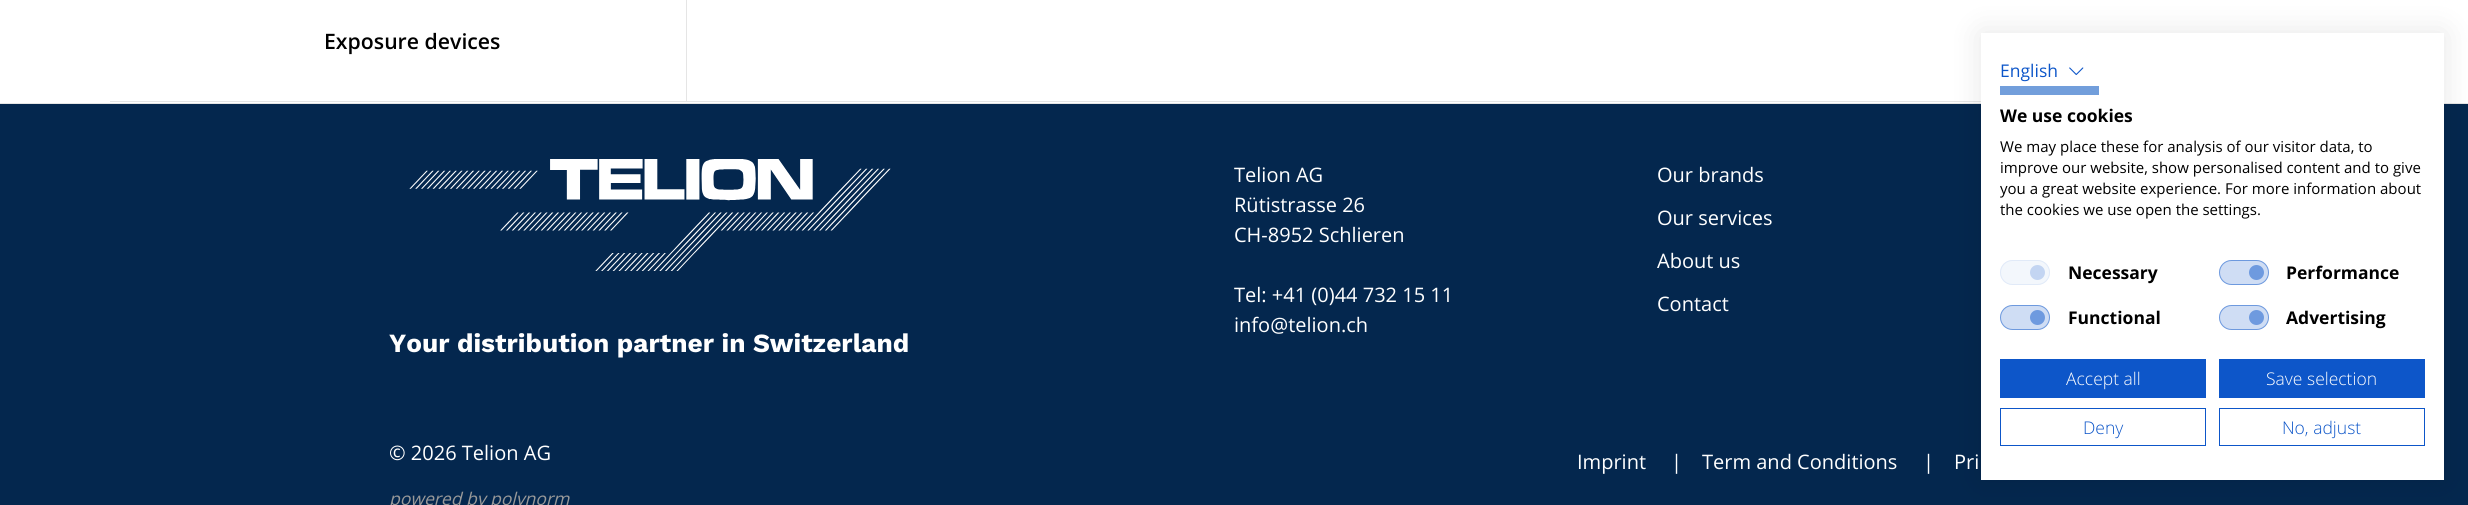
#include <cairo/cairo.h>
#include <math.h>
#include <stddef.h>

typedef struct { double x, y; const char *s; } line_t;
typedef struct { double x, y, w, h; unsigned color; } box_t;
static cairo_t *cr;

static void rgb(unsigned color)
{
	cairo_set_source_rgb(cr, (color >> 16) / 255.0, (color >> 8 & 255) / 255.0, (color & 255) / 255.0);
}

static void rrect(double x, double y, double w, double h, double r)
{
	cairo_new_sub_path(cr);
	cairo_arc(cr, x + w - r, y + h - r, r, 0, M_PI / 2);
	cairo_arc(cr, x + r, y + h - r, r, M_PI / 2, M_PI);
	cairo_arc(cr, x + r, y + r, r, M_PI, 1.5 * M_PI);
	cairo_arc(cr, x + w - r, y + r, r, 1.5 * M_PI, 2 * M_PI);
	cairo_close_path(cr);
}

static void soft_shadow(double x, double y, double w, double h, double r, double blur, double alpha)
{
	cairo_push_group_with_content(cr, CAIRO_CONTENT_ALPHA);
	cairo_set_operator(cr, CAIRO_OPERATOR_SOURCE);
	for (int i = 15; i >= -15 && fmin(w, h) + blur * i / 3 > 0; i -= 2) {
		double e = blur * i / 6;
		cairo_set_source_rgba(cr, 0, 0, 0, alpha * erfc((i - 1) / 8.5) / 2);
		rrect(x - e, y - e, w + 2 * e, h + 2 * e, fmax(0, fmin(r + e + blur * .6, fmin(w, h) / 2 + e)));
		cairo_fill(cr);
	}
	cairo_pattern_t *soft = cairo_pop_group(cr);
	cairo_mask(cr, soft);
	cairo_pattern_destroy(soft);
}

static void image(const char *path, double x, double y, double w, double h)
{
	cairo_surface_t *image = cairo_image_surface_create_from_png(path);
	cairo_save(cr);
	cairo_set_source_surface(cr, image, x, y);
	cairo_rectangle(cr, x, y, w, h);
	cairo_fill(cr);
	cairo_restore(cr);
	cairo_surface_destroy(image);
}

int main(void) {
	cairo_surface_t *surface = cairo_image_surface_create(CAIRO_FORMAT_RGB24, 2468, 505);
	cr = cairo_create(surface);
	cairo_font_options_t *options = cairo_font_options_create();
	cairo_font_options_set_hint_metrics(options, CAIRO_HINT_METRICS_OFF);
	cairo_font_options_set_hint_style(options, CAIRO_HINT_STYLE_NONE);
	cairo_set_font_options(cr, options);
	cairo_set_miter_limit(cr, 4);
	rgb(0xffffff);
	cairo_paint(cr);
	{
		static const box_t items[] = {
			{110, 101, 1871, 1, 0xe5e5e5},
			{686, 0, 1, 101, 0xe5e5e5},
			{0, 104, 2468, 401, 0x04274e},
			{0, 103, 2468, 1, 0xe5e5e5},
		};
		for (size_t i = 0; i < sizeof items / sizeof *items; i++) {
			rgb(items[i].color);
			cairo_rectangle(cr, items[i].x, items[i].y, items[i].w, items[i].h);
			cairo_fill(cr);
		}
	}
	image("img/1.png", 409, 159, 482, 112);
	rgb(0x000000);
	soft_shadow(1981, 33, 463, 447, 0, 15, 0.1);
	rgb(0xffffff);
	cairo_rectangle(cr, 1981, 33, 463, 447);
	cairo_fill(cr);
	image("img/2.png", 2069, 67, 15, 8);
	rgb(0x729edb);
	cairo_rectangle(cr, 2000, 86, 99, 9);
	cairo_fill(cr);
	rgb(0xf3f7fc);
	rrect(2000, 260, 50, 25, 12.5);
	cairo_fill(cr);
	rgb(0xc3d5f2);
	cairo_arc(cr, 2037.5, 272.5, 7.5, 0, 2 * M_PI);
	cairo_fill(cr);
	rrect(2000.5, 260.5, 49, 24, 12);
	rgb(0xe1eaf8);
	cairo_set_line_width(cr, 1);
	cairo_stroke(cr);
	rgb(0xcfddf4);
	rrect(2219, 260, 50, 25, 12.5);
	cairo_fill(cr);
	rgb(0x6e9adf);
	cairo_arc(cr, 2256.5, 272.5, 7.5, 0, 2 * M_PI);
	cairo_fill(cr);
	rrect(2219.5, 260.5, 49, 24, 12);
	cairo_set_source_rgba(cr, 0.051, 0.337, 0.788, 0.5);
	cairo_stroke(cr);
	rgb(0xcfddf4);
	rrect(2000, 305, 50, 25, 12.5);
	cairo_fill(cr);
	rgb(0x6e9adf);
	cairo_arc(cr, 2037.5, 317.5, 7.5, 0, 2 * M_PI);
	cairo_fill(cr);
	rrect(2000.5, 305.5, 49, 24, 12);
	cairo_set_source_rgba(cr, 0.051, 0.337, 0.788, 0.5);
	cairo_stroke(cr);
	rgb(0xcfddf4);
	rrect(2219, 305, 50, 25, 12.5);
	cairo_fill(cr);
	rgb(0x6e9adf);
	cairo_arc(cr, 2256.5, 317.5, 7.5, 0, 2 * M_PI);
	cairo_fill(cr);
	rrect(2219.5, 305.5, 49, 24, 12);
	cairo_set_source_rgba(cr, 0.051, 0.337, 0.788, 0.5);
	cairo_stroke(cr);
	rgb(0x0d56c9);
	cairo_rectangle(cr, 2000, 359, 206, 39);
	cairo_fill(cr);
	cairo_rectangle(cr, 2219, 359, 206, 39);
	cairo_fill(cr);
	cairo_rectangle(cr, 2000.5, 408.5, 205, 37);
	cairo_stroke(cr);
	cairo_rectangle(cr, 2219.5, 408.5, 205, 37);
	cairo_stroke(cr);
	cairo_select_font_face(cr, "Open Sans SemiBold", CAIRO_FONT_SLANT_NORMAL, CAIRO_FONT_WEIGHT_NORMAL);
	cairo_set_font_size(cr, 21.25);
	rgb(0x000000);
	cairo_move_to(cr, 324, 49);
	cairo_show_text(cr, "Exposure devices");
	cairo_select_font_face(cr, "Open Sans", CAIRO_FONT_SLANT_NORMAL, CAIRO_FONT_WEIGHT_NORMAL);
	cairo_set_font_size(cr, 20);
	rgb(0xffffff);
	{
		static const line_t items[] = {
			{1234, 182, "Telion AG"},
			{1234, 212, "Rütistrasse 26"},
			{1234, 242, "CH-8952 Schlieren"},
			{1234, 302, "Tel: +41 (0)44 732 15 11"},
			{1234, 332, "info@telion.ch"},
			{1657, 182, "Our brands"},
			{1657, 225, "Our services"},
			{1657, 268, "About us"},
			{1657, 311, "Contact"},
		};
		for (size_t i = 0; i < sizeof items / sizeof *items; i++) {
			cairo_move_to(cr, items[i].x, items[i].y);
			cairo_show_text(cr, items[i].s);
		}
	}
	cairo_select_font_face(cr, "Work Sans", CAIRO_FONT_SLANT_NORMAL, CAIRO_FONT_WEIGHT_BOLD);
	cairo_set_font_size(cr, 26.25);
	cairo_move_to(cr, 389, 352);
	cairo_show_text(cr, "Your distribution partner in Switzerland");
	cairo_select_font_face(cr, "Open Sans", CAIRO_FONT_SLANT_NORMAL, CAIRO_FONT_WEIGHT_NORMAL);
	cairo_set_font_size(cr, 20);
	{
		static const line_t items[] = {
			{389, 460, "© 2026 Telion AG"},
			{1577, 469, "Imprint"},
			{1671, 469, "|"},
			{1702, 469, "Term and Conditions"},
			{1923, 469, "|"},
			{1954, 469, "Pri"},
		};
		for (size_t i = 0; i < sizeof items / sizeof *items; i++) {
			cairo_move_to(cr, items[i].x, items[i].y);
			cairo_show_text(cr, items[i].s);
		}
	}
	cairo_select_font_face(cr, "Open Sans", CAIRO_FONT_SLANT_ITALIC, CAIRO_FONT_WEIGHT_NORMAL);
	cairo_set_font_size(cr, 17.5);
	rgb(0x999999);
	cairo_move_to(cr, 389, 505);
	cairo_show_text(cr, "powered by polynorm");
	cairo_select_font_face(cr, "Open Sans", CAIRO_FONT_SLANT_NORMAL, CAIRO_FONT_WEIGHT_NORMAL);
	rgb(0x0d56c9);
	cairo_move_to(cr, 2000, 77);
	cairo_show_text(cr, "English");
	cairo_select_font_face(cr, "Open Sans", CAIRO_FONT_SLANT_NORMAL, CAIRO_FONT_WEIGHT_BOLD);
	rgb(0x000000);
	cairo_move_to(cr, 2000, 122);
	cairo_show_text(cr, "We use cookies");
	cairo_select_font_face(cr, "Open Sans", CAIRO_FONT_SLANT_NORMAL, CAIRO_FONT_WEIGHT_NORMAL);
	cairo_set_font_size(cr, 15);
	{
		static const line_t items[] = {
			{2000, 152, "We may place these for analysis of our visitor data, to"},
			{2000, 173, "improve our website, show personalised content and to give"},
			{2000, 194, "you a great website experience. For more information about"},
			{2000, 215, "the cookies we use open the settings."},
		};
		for (size_t i = 0; i < sizeof items / sizeof *items; i++) {
			cairo_move_to(cr, items[i].x, items[i].y);
			cairo_show_text(cr, items[i].s);
		}
	}
	cairo_select_font_face(cr, "Open Sans", CAIRO_FONT_SLANT_NORMAL, CAIRO_FONT_WEIGHT_BOLD);
	cairo_set_font_size(cr, 17.5);
	{
		static const line_t items[] = {
			{2068, 279, "Necessary"},
			{2286, 279, "Performance"},
			{2068, 324, "Functional"},
			{2286, 324, "Advertising"},
		};
		for (size_t i = 0; i < sizeof items / sizeof *items; i++) {
			cairo_move_to(cr, items[i].x, items[i].y);
			cairo_show_text(cr, items[i].s);
		}
	}
	cairo_select_font_face(cr, "Open Sans Light", CAIRO_FONT_SLANT_NORMAL, CAIRO_FONT_WEIGHT_NORMAL);
	rgb(0xffffff);
	cairo_move_to(cr, 2066, 385);
	cairo_show_text(cr, "Accept all");
	cairo_move_to(cr, 2266, 385);
	cairo_show_text(cr, "Save selection");
	rgb(0x0d56c9);
	cairo_move_to(cr, 2083, 434);
	cairo_show_text(cr, "Deny");
	cairo_move_to(cr, 2282, 434);
	cairo_show_text(cr, "No, adjust");
	cairo_surface_write_to_png(surface, "page.png");
	cairo_font_options_destroy(options);
	cairo_destroy(cr);
	cairo_surface_destroy(surface);
	return 0;
}
